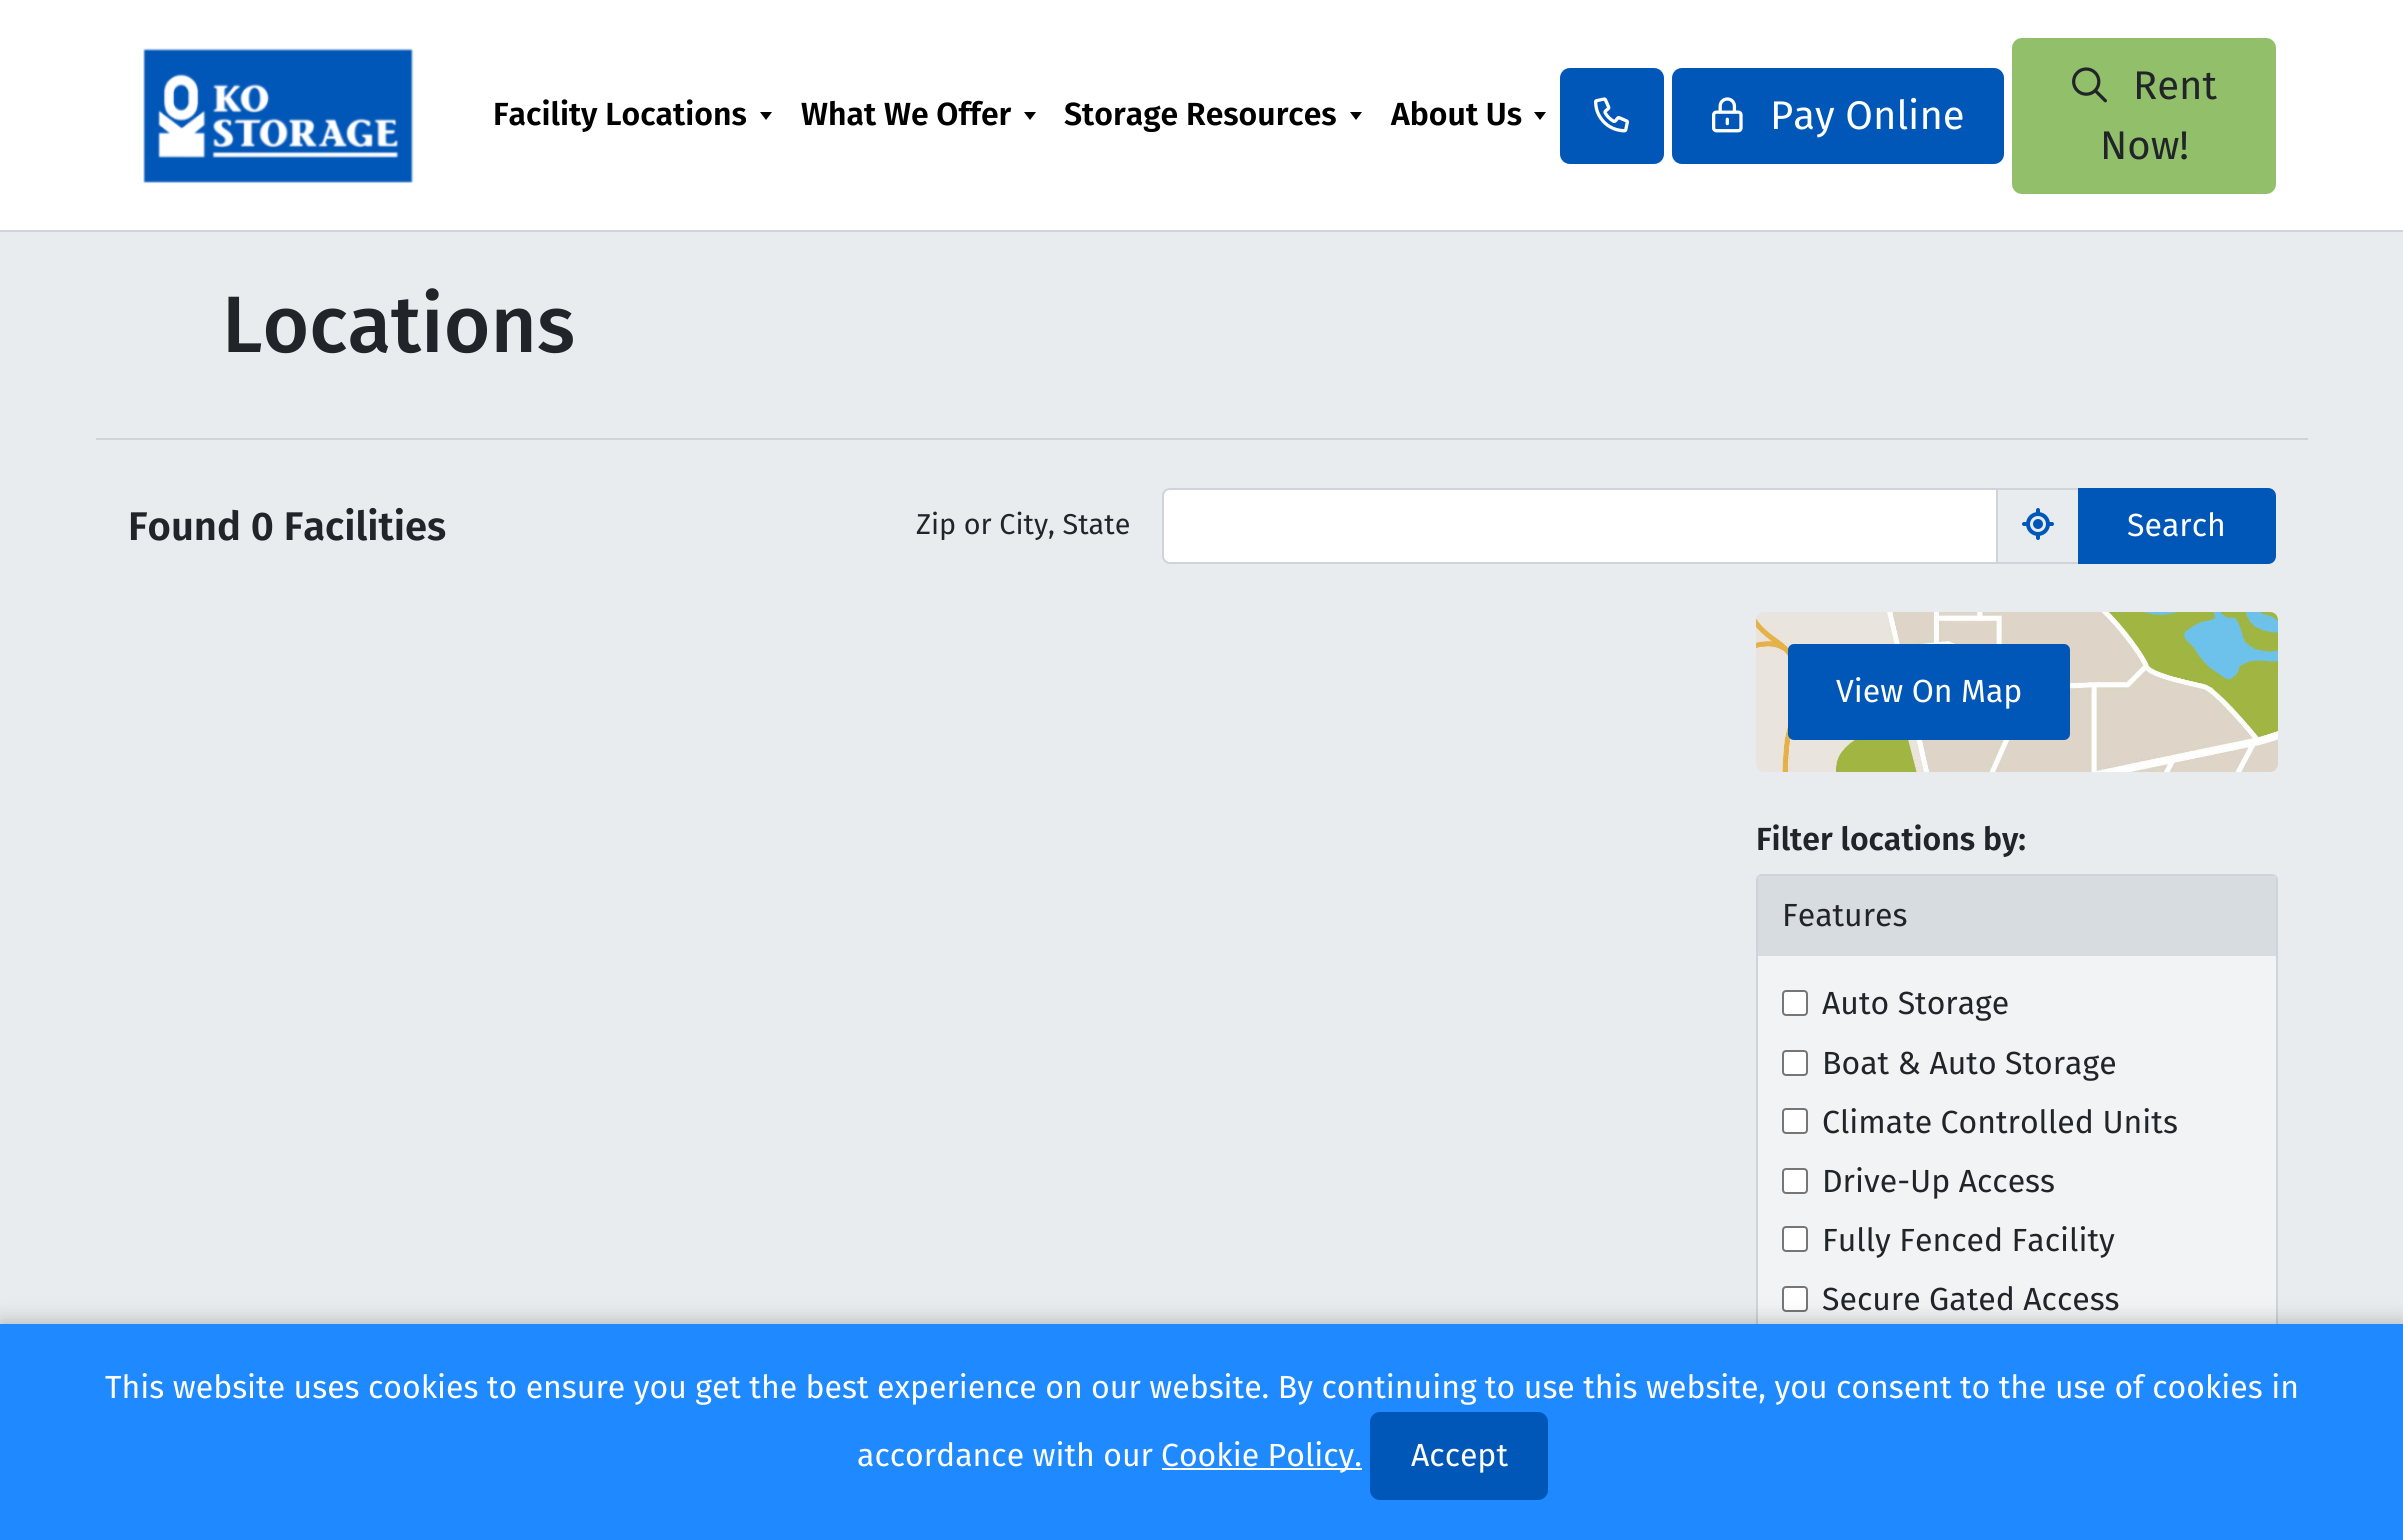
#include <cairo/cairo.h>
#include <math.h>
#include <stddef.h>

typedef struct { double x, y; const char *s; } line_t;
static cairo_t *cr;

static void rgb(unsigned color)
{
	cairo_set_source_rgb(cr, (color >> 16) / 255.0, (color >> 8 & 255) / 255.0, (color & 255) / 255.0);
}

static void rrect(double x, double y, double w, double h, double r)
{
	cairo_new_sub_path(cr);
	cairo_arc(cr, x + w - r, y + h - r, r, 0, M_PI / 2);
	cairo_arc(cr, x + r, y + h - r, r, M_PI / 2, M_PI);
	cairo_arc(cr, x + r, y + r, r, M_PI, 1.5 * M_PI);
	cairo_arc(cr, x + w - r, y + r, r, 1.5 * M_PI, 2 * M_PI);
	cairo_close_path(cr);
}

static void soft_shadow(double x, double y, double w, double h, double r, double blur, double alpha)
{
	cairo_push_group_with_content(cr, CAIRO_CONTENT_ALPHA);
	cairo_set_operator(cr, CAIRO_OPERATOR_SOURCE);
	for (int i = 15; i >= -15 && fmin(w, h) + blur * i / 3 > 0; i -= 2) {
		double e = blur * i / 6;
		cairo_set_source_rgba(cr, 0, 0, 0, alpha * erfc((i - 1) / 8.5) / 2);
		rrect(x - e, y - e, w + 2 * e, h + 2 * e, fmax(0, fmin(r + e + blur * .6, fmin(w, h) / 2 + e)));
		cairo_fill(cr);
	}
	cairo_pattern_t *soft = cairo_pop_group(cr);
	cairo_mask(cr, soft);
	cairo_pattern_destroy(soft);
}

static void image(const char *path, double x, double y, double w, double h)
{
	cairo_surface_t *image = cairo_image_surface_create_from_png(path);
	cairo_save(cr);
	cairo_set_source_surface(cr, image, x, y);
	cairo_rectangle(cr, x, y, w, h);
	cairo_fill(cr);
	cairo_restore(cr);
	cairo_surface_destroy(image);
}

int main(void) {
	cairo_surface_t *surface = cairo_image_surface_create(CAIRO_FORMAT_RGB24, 2403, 1540);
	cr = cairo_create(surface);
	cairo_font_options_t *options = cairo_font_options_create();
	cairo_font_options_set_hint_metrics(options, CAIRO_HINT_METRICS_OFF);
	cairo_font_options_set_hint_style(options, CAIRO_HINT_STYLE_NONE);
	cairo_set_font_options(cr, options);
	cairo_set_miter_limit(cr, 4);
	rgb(0xe9ecef);
	cairo_paint(cr);
	rgb(0xffffff);
	cairo_rectangle(cr, 0, 0, 2403, 230);
	cairo_fill(cr);
	rgb(0xced4da);
	cairo_rectangle(cr, 0, 230, 2403, 2);
	cairo_fill(cr);
	image("img/1.png", 143, 48, 271, 136);
	rgb(0x000000);
	cairo_new_path(cr);
	cairo_move_to(cr, 760, 112);
	cairo_line_to(cr, 772, 112);
	cairo_line_to(cr, 766, 120);
	cairo_close_path(cr);
	cairo_fill(cr);
	cairo_new_path(cr);
	cairo_move_to(cr, 1024, 112);
	cairo_line_to(cr, 1036, 112);
	cairo_line_to(cr, 1030, 120);
	cairo_close_path(cr);
	cairo_fill(cr);
	cairo_new_path(cr);
	cairo_move_to(cr, 1350, 112);
	cairo_line_to(cr, 1362, 112);
	cairo_line_to(cr, 1356, 120);
	cairo_close_path(cr);
	cairo_fill(cr);
	cairo_new_path(cr);
	cairo_move_to(cr, 1534, 112);
	cairo_line_to(cr, 1546, 112);
	cairo_line_to(cr, 1540, 120);
	cairo_close_path(cr);
	cairo_fill(cr);
	rgb(0x0057b8);
	rrect(1561, 69, 102, 94, 9);
	cairo_fill_preserve(cr);
	cairo_stroke(cr);
	image("img/2.png", 1594, 97, 35, 36);
	rrect(1673, 69, 330, 94, 9);
	cairo_fill_preserve(cr);
	cairo_stroke(cr);
	image("img/3.png", 1712, 97, 31, 36);
	rgb(0x92bf69);
	rrect(2013, 39, 262, 154, 9);
	cairo_fill_preserve(cr);
	cairo_stroke(cr);
	image("img/4.png", 2072, 67, 35, 36);
	rgb(0xced4da);
	cairo_rectangle(cr, 96, 438, 2212, 2);
	cairo_fill(cr);
	rgb(0xffffff);
	cairo_new_path(cr);
	cairo_move_to(cr, 1170, 489);
	cairo_line_to(cr, 1997, 489);
	cairo_line_to(cr, 1997, 563);
	cairo_line_to(cr, 1170, 563);
	cairo_curve_to(cr, 1166, 563, 1163, 560, 1163, 556);
	cairo_line_to(cr, 1163, 496);
	cairo_curve_to(cr, 1163, 492, 1166, 489, 1170, 489);
	cairo_close_path(cr);
	cairo_fill_preserve(cr);
	rgb(0xced4da);
	cairo_stroke(cr);
	cairo_rectangle(cr, 1997, 489, 82, 74);
	cairo_stroke(cr);
	image("img/5.png", 2022, 508, 32, 32);
	rgb(0x0057b8);
	cairo_new_path(cr);
	cairo_move_to(cr, 2079, 489);
	cairo_line_to(cr, 2268, 489);
	cairo_curve_to(cr, 2272, 489, 2275, 492, 2275, 496);
	cairo_line_to(cr, 2275, 556);
	cairo_curve_to(cr, 2275, 560, 2272, 563, 2268, 563);
	cairo_line_to(cr, 2079, 563);
	cairo_close_path(cr);
	cairo_fill_preserve(cr);
	cairo_stroke(cr);
	image("img/6.png", 1756, 612, 522, 160);
	rrect(1788, 644, 282, 96, 6);
	cairo_fill(cr);
	rgb(0xf1f3f4);
	rrect(1757, 875, 520, 486, 5);
	cairo_fill_preserve(cr);
	rgb(0xced4da);
	cairo_stroke(cr);
	rgb(0xd7dce1);
	cairo_rectangle(cr, 1758, 876, 518, 80);
	cairo_fill(cr);
	rgb(0xffffff);
	rrect(1783, 991, 24, 24, 3);
	cairo_fill_preserve(cr);
	rgb(0x767676);
	cairo_stroke(cr);
	rgb(0xffffff);
	rrect(1783, 1051, 24, 24, 3);
	cairo_fill_preserve(cr);
	rgb(0x767676);
	cairo_stroke(cr);
	rgb(0xffffff);
	rrect(1783, 1109, 24, 24, 3);
	cairo_fill_preserve(cr);
	rgb(0x767676);
	cairo_stroke(cr);
	rgb(0xffffff);
	rrect(1783, 1169, 24, 24, 3);
	cairo_fill_preserve(cr);
	rgb(0x767676);
	cairo_stroke(cr);
	rgb(0xffffff);
	rrect(1783, 1227, 24, 24, 3);
	cairo_fill_preserve(cr);
	rgb(0x767676);
	cairo_stroke(cr);
	rgb(0xffffff);
	rrect(1783, 1287, 24, 24, 3);
	cairo_fill_preserve(cr);
	rgb(0x767676);
	cairo_stroke(cr);
	rgb(0x000000);
	soft_shadow(0, 1320, 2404, 216, 0, 10, 0.2);
	rgb(0x1f89ff);
	cairo_rectangle(cr, 0, 1324, 2403, 216);
	cairo_fill(cr);
	rgb(0xffffff);
	cairo_rectangle(cr, 1162, 1468, 200, 2);
	cairo_fill(cr);
	rgb(0x0057b8);
	rrect(1370, 1412, 178, 88, 10);
	cairo_fill(cr);
	cairo_select_font_face(cr, "Fira Sans SemiBold", CAIRO_FONT_SLANT_NORMAL, CAIRO_FONT_WEIGHT_NORMAL);
	cairo_set_font_size(cr, 32);
	rgb(0x000000);
	{
		static const line_t items[] = {
			{493, 125, "Facility Locations"},
			{801, 125, "What We Offer"},
			{1064, 125, "Storage Resources"},
			{1391, 125, "About Us"},
		};
		for (size_t i = 0; i < sizeof items / sizeof *items; i++) {
			cairo_move_to(cr, items[i].x, items[i].y);
			cairo_show_text(cr, items[i].s);
		}
	}
	cairo_select_font_face(cr, "Fira Sans", CAIRO_FONT_SLANT_NORMAL, CAIRO_FONT_WEIGHT_NORMAL);
	cairo_set_font_size(cr, 40);
	rgb(0xffffff);
	cairo_move_to(cr, 1770, 129);
	cairo_show_text(cr, "Pay Online");
	rgb(0x212529);
	cairo_move_to(cr, 2133, 99);
	cairo_show_text(cr, "Rent");
	cairo_move_to(cr, 2100, 159);
	cairo_show_text(cr, "Now!");
	cairo_select_font_face(cr, "Fira Sans Medium", CAIRO_FONT_SLANT_NORMAL, CAIRO_FONT_WEIGHT_NORMAL);
	cairo_set_font_size(cr, 80);
	cairo_move_to(cr, 222, 352);
	cairo_show_text(cr, "Locations");
	cairo_select_font_face(cr, "Fira Sans SemiBold", CAIRO_FONT_SLANT_NORMAL, CAIRO_FONT_WEIGHT_NORMAL);
	cairo_set_font_size(cr, 40);
	cairo_move_to(cr, 128, 540);
	cairo_show_text(cr, "Found 0 Facilities");
	cairo_select_font_face(cr, "Fira Sans", CAIRO_FONT_SLANT_NORMAL, CAIRO_FONT_WEIGHT_NORMAL);
	cairo_set_font_size(cr, 28.75);
	cairo_move_to(cr, 916, 534);
	cairo_show_text(cr, "Zip or City, State");
	cairo_set_font_size(cr, 32);
	rgb(0xffffff);
	cairo_move_to(cr, 2127, 536);
	cairo_show_text(cr, "Search");
	cairo_move_to(cr, 1836, 702);
	cairo_show_text(cr, "View On Map");
	cairo_select_font_face(cr, "Fira Sans SemiBold", CAIRO_FONT_SLANT_NORMAL, CAIRO_FONT_WEIGHT_NORMAL);
	rgb(0x212529);
	cairo_move_to(cr, 1756, 850);
	cairo_show_text(cr, "Filter locations by:");
	cairo_select_font_face(cr, "Fira Sans", CAIRO_FONT_SLANT_NORMAL, CAIRO_FONT_WEIGHT_NORMAL);
	{
		static const line_t items[] = {
			{1782, 926, "Features"},
			{1822, 1014, "Auto Storage"},
			{1822, 1074, "Boat & Auto Storage"},
			{1822, 1133, "Climate Controlled Units"},
			{1822, 1192, "Drive-Up Access"},
			{1822, 1251, "Fully Fenced Facility"},
			{1822, 1310, "Secure Gated Access"},
		};
		for (size_t i = 0; i < sizeof items / sizeof *items; i++) {
			cairo_move_to(cr, items[i].x, items[i].y);
			cairo_show_text(cr, items[i].s);
		}
	}
	rgb(0xffffff);
	{
		static const line_t items[] = {
			{105, 1398, "This website uses cookies to ensure you get the best experience on our website. By continuing to use this website, you consent to the use of cookies in"},
			{857, 1466, "accordance with our"},
			{1161, 1466, "Cookie Policy."},
			{1411, 1466, "Accept"},
		};
		for (size_t i = 0; i < sizeof items / sizeof *items; i++) {
			cairo_move_to(cr, items[i].x, items[i].y);
			cairo_show_text(cr, items[i].s);
		}
	}
	cairo_surface_write_to_png(surface, "page.png");
	cairo_font_options_destroy(options);
	cairo_destroy(cr);
	cairo_surface_destroy(surface);
	return 0;
}
